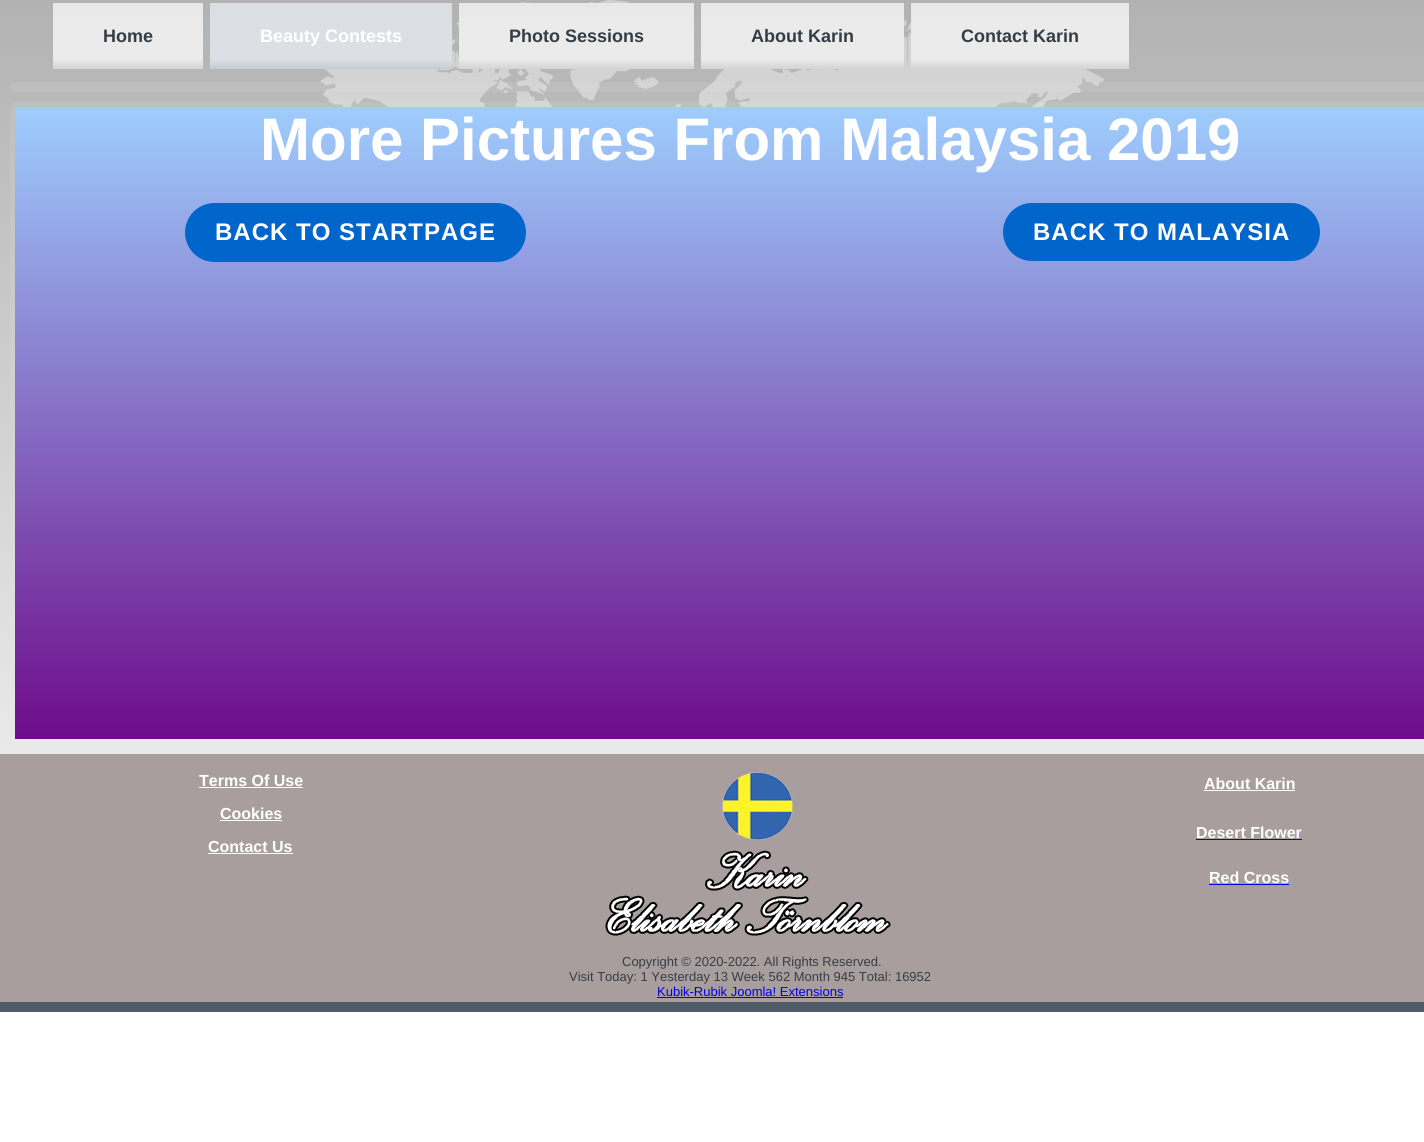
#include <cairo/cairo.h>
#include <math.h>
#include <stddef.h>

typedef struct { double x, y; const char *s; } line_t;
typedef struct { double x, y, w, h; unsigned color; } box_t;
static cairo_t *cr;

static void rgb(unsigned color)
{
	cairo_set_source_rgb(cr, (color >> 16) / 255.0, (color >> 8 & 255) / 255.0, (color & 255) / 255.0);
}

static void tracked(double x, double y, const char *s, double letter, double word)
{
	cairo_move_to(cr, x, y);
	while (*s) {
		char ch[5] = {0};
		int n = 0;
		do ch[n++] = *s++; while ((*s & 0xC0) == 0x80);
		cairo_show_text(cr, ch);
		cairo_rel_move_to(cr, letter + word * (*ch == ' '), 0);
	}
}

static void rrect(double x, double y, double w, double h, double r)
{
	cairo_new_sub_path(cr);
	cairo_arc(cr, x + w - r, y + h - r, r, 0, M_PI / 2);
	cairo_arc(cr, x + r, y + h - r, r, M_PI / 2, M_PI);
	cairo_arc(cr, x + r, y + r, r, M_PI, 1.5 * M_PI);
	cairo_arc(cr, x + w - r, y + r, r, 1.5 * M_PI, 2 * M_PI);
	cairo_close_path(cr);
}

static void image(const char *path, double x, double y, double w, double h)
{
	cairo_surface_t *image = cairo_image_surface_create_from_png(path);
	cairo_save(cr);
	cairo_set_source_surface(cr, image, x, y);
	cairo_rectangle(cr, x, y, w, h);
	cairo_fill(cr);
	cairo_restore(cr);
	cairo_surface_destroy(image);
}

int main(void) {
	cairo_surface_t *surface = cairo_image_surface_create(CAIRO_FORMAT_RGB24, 1424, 1142);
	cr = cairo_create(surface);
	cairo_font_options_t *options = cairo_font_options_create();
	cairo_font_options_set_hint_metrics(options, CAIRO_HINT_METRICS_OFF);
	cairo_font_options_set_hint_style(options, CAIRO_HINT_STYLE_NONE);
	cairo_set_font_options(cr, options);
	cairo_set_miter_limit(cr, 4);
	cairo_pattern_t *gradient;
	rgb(0xffffff);
	cairo_paint(cr);
	image("img/1.png", 0, 0, 1424, 754);
	gradient = cairo_pattern_create_linear(128, 3, 128, 69);
	cairo_pattern_add_color_stop_rgba(gradient, 0, 0.91, 0.91, 0.91, 1);
	cairo_pattern_add_color_stop_rgba(gradient, 0.4, 0.922, 0.922, 0.922, 1);
	cairo_pattern_add_color_stop_rgba(gradient, 0.85, 0.922, 0.922, 0.922, 1);
	cairo_pattern_add_color_stop_rgba(gradient, 1, 0.831, 0.831, 0.831, 1);
	cairo_set_source(cr, gradient);
	cairo_pattern_destroy(gradient);
	cairo_rectangle(cr, 53, 3, 150, 66);
	cairo_fill(cr);
	image("img/2.png", 206, 9, 1, 53);
	gradient = cairo_pattern_create_linear(331, 3, 331, 69);
	cairo_pattern_add_color_stop_rgba(gradient, 0, 0.851, 0.871, 0.89, 1);
	cairo_pattern_add_color_stop_rgba(gradient, 0.4, 0.863, 0.878, 0.898, 1);
	cairo_pattern_add_color_stop_rgba(gradient, 0.85, 0.863, 0.878, 0.898, 1);
	cairo_pattern_add_color_stop_rgba(gradient, 1, 0.769, 0.8, 0.831, 1);
	cairo_set_source(cr, gradient);
	cairo_pattern_destroy(gradient);
	cairo_rectangle(cr, 210, 3, 242, 66);
	cairo_fill(cr);
	image("img/3.png", 455, 9, 1, 58);
	gradient = cairo_pattern_create_linear(577, 3, 577, 69);
	cairo_pattern_add_color_stop_rgba(gradient, 0, 0.91, 0.91, 0.91, 1);
	cairo_pattern_add_color_stop_rgba(gradient, 0.4, 0.922, 0.922, 0.922, 1);
	cairo_pattern_add_color_stop_rgba(gradient, 0.85, 0.922, 0.922, 0.922, 1);
	cairo_pattern_add_color_stop_rgba(gradient, 1, 0.831, 0.831, 0.831, 1);
	cairo_set_source(cr, gradient);
	cairo_pattern_destroy(gradient);
	cairo_rectangle(cr, 459, 3, 235, 66);
	cairo_fill(cr);
	image("img/4.png", 697, 9, 1, 53);
	gradient = cairo_pattern_create_linear(803, 3, 803, 69);
	cairo_pattern_add_color_stop_rgba(gradient, 0, 0.91, 0.91, 0.91, 1);
	cairo_pattern_add_color_stop_rgba(gradient, 0.4, 0.922, 0.922, 0.922, 1);
	cairo_pattern_add_color_stop_rgba(gradient, 0.85, 0.922, 0.922, 0.922, 1);
	cairo_pattern_add_color_stop_rgba(gradient, 1, 0.831, 0.831, 0.831, 1);
	cairo_set_source(cr, gradient);
	cairo_pattern_destroy(gradient);
	cairo_rectangle(cr, 701, 3, 203, 66);
	cairo_fill(cr);
	image("img/5.png", 907, 9, 1, 58);
	gradient = cairo_pattern_create_linear(1020, 3, 1020, 69);
	cairo_pattern_add_color_stop_rgba(gradient, 0, 0.91, 0.91, 0.91, 1);
	cairo_pattern_add_color_stop_rgba(gradient, 0.4, 0.922, 0.922, 0.922, 1);
	cairo_pattern_add_color_stop_rgba(gradient, 0.85, 0.922, 0.922, 0.922, 1);
	cairo_pattern_add_color_stop_rgba(gradient, 1, 0.831, 0.831, 0.831, 1);
	cairo_set_source(cr, gradient);
	cairo_pattern_destroy(gradient);
	cairo_rectangle(cr, 911, 3, 218, 66);
	cairo_fill(cr);
	cairo_set_source_rgba(cr, 0.898, 0.91, 0.922, 0.12);
	rrect(10, 82, 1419, 10, 5);
	cairo_fill(cr);
	rrect(10, 102, 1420, 642, 6);
	cairo_fill(cr);
	gradient = cairo_pattern_create_linear(750, 107, 750, 739);
	cairo_pattern_add_color_stop_rgba(gradient, 0, 0.62, 0.804, 0.992, 1);
	cairo_pattern_add_color_stop_rgba(gradient, 1, 0.427, 0.047, 0.541, 1);
	cairo_set_source(cr, gradient);
	cairo_pattern_destroy(gradient);
	cairo_rectangle(cr, 15, 107, 1409, 632);
	cairo_fill(cr);
	rgb(0x0066cc);
	rrect(185, 203, 341, 59, 29.5);
	cairo_fill(cr);
	rrect(1003, 203, 317, 58, 29);
	cairo_fill(cr);
	{
		static const box_t items[] = {
			{0, 754, 1424, 248, 0xa99e9e},
			{199, 787, 104, 1, 0xffffff},
			{220, 820, 62, 1, 0xffffff},
			{208, 853, 85, 1, 0xffffff},
			{1204, 790, 91, 1, 0xffffff},
			{1196, 839, 106, 1, 0x0000ee},
			{1209, 884, 80, 1, 0x0000ee},
		};
		for (size_t i = 0; i < sizeof items / sizeof *items; i++) {
			rgb(items[i].color);
			cairo_rectangle(cr, items[i].x, items[i].y, items[i].w, items[i].h);
			cairo_fill(cr);
		}
	}
	image("img/6.png", 605, 772, 286, 164);
	cairo_rectangle(cr, 657, 997, 186, 1);
	cairo_fill(cr);
	rgb(0x4e5c6a);
	cairo_rectangle(cr, 0, 1002, 1424, 10);
	cairo_fill(cr);
	cairo_select_font_face(cr, "Liberation Sans", CAIRO_FONT_SLANT_NORMAL, CAIRO_FONT_WEIGHT_BOLD);
	cairo_set_font_size(cr, 18);
	rgb(0x343d46);
	cairo_move_to(cr, 103, 42);
	cairo_show_text(cr, "Home");
	rgb(0xffffff);
	cairo_move_to(cr, 260, 42);
	cairo_show_text(cr, "Beauty Contests");
	rgb(0x343d46);
	{
		static const line_t items[] = {
			{509, 42, "Photo Sessions"},
			{751, 42, "About Karin"},
			{961, 42, "Contact Karin"},
		};
		for (size_t i = 0; i < sizeof items / sizeof *items; i++) {
			cairo_move_to(cr, items[i].x, items[i].y);
			cairo_show_text(cr, items[i].s);
		}
	}
	cairo_set_font_size(cr, 60);
	rgb(0xffffff);
	cairo_move_to(cr, 260, 160);
	cairo_show_text(cr, "More Pictures From Malaysia 2019");
	cairo_set_font_size(cr, 24);
	tracked(215, 240, "BACK TO STARTPAGE", 1, 0);
	tracked(1033, 240, "BACK TO MALAYSIA", 1, 0);
	cairo_set_font_size(cr, 16);
	{
		static const line_t items[] = {
			{199, 786, "Terms Of Use"},
			{220, 819, "Cookies"},
			{208, 852, "Contact Us"},
			{1204, 789, "About Karin"},
			{1196, 838, "Desert Flower"},
			{1209, 883, "Red Cross"},
		};
		for (size_t i = 0; i < sizeof items / sizeof *items; i++) {
			cairo_move_to(cr, items[i].x, items[i].y);
			cairo_show_text(cr, items[i].s);
		}
	}
	cairo_select_font_face(cr, "Liberation Sans", CAIRO_FONT_SLANT_NORMAL, CAIRO_FONT_WEIGHT_NORMAL);
	cairo_set_font_size(cr, 13);
	rgb(0x343d46);
	cairo_move_to(cr, 622, 966);
	cairo_show_text(cr, "Copyright © 2020-2022. All Rights Reserved.");
	cairo_move_to(cr, 569, 981);
	cairo_show_text(cr, "Visit Today: 1 Yesterday 13 Week 562 Month 945 Total: 16952");
	rgb(0x0000ee);
	cairo_move_to(cr, 657, 996);
	cairo_show_text(cr, "Kubik-Rubik Joomla! Extensions");
	cairo_surface_write_to_png(surface, "page.png");
	cairo_font_options_destroy(options);
	cairo_destroy(cr);
	cairo_surface_destroy(surface);
	return 0;
}
